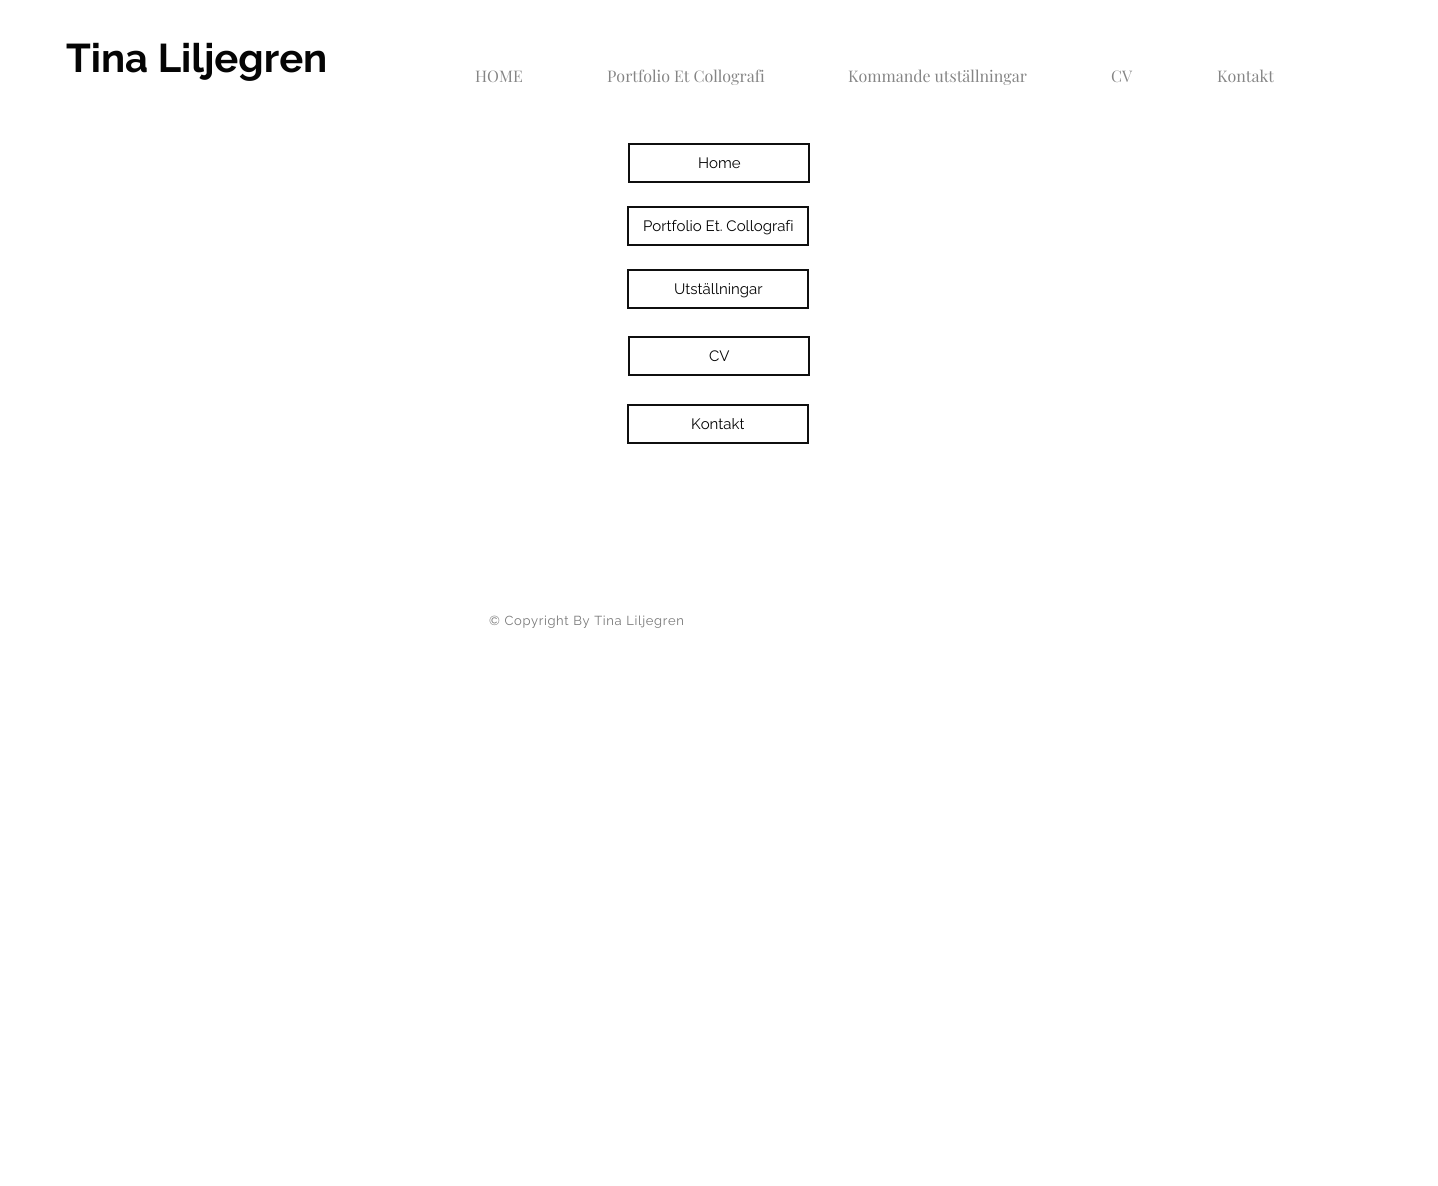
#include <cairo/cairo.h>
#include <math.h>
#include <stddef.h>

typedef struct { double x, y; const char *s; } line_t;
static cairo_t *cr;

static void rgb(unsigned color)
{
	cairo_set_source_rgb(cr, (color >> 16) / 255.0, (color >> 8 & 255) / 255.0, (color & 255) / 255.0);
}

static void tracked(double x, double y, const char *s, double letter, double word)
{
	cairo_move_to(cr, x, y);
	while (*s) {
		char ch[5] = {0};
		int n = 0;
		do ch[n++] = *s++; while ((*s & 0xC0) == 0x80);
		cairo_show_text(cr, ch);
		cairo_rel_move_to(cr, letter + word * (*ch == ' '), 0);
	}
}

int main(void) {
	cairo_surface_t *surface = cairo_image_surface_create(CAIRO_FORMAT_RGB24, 1438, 1186);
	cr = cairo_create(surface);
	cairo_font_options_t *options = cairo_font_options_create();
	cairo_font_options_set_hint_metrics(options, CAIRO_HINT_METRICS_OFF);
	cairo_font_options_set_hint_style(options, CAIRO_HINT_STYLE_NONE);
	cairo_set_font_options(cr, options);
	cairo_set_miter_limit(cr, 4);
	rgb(0xffffff);
	cairo_paint(cr);
	cairo_rectangle(cr, 629, 144, 180, 38);
	rgb(0x0f0f0f);
	cairo_stroke(cr);
	cairo_rectangle(cr, 628, 207, 180, 38);
	cairo_stroke(cr);
	cairo_rectangle(cr, 628, 270, 180, 38);
	cairo_stroke(cr);
	cairo_rectangle(cr, 629, 337, 180, 38);
	cairo_stroke(cr);
	cairo_rectangle(cr, 628, 405, 180, 38);
	cairo_stroke(cr);
	cairo_select_font_face(cr, "Raleway", CAIRO_FONT_SLANT_NORMAL, CAIRO_FONT_WEIGHT_BOLD);
	cairo_set_font_size(cr, 40);
	rgb(0x050505);
	cairo_move_to(cr, 66, 72);
	cairo_show_text(cr, "Tina Liljegren");
	cairo_select_font_face(cr, "Playfair Display", CAIRO_FONT_SLANT_NORMAL, CAIRO_FONT_WEIGHT_NORMAL);
	cairo_set_font_size(cr, 16);
	rgb(0x858585);
	{
		static const line_t items[] = {
			{475, 82, "HOME"},
			{607, 82, "Portfolio Et Collografi"},
			{848, 82, "Kommande utställningar"},
			{1111, 82, "CV"},
			{1217, 82, "Kontakt"},
		};
		for (size_t i = 0; i < sizeof items / sizeof *items; i++) {
			cairo_move_to(cr, items[i].x, items[i].y);
			cairo_show_text(cr, items[i].s);
		}
	}
	cairo_select_font_face(cr, "Raleway", CAIRO_FONT_SLANT_NORMAL, CAIRO_FONT_WEIGHT_NORMAL);
	cairo_set_font_size(cr, 15);
	rgb(0x050505);
	{
		static const line_t items[] = {
			{698, 168, "Home"},
			{643, 231, "Portfolio Et. Collografi"},
			{674, 294, "Utställningar"},
			{709, 361, "CV"},
			{691, 429, "Kontakt"},
		};
		for (size_t i = 0; i < sizeof items / sizeof *items; i++) {
			cairo_move_to(cr, items[i].x, items[i].y);
			cairo_show_text(cr, items[i].s);
		}
	}
	cairo_set_font_size(cr, 13);
	rgb(0x797979);
	tracked(489, 625, "© Copyright By Tina Liljegren", 0.65, 0);
	cairo_surface_write_to_png(surface, "page.png");
	cairo_font_options_destroy(options);
	cairo_destroy(cr);
	cairo_surface_destroy(surface);
	return 0;
}
